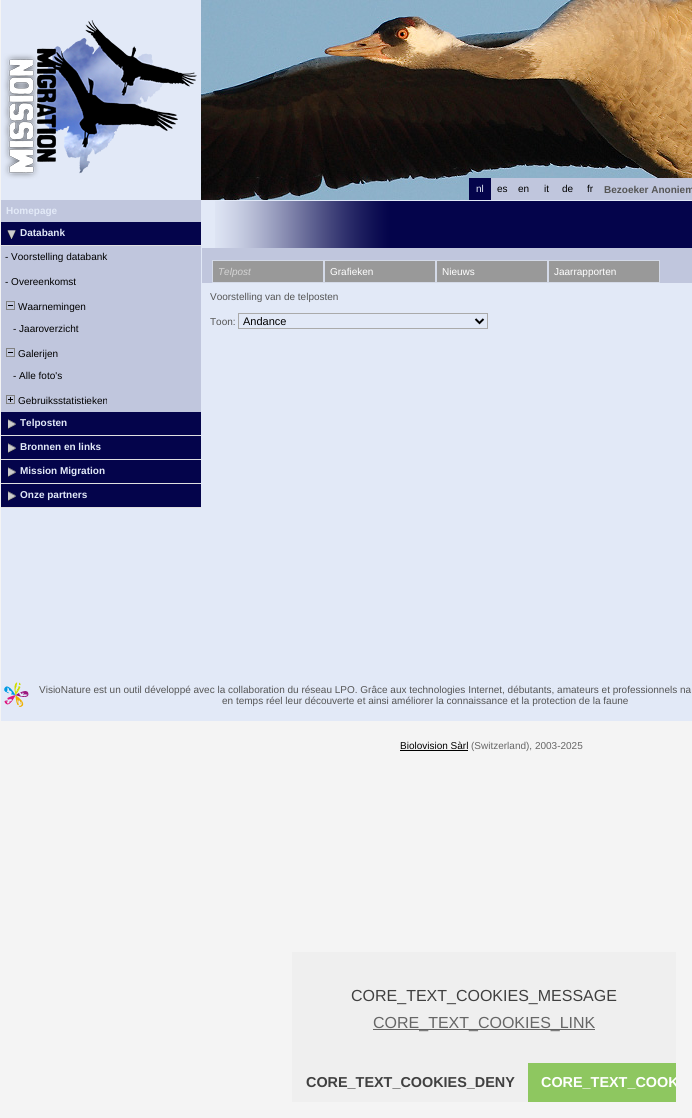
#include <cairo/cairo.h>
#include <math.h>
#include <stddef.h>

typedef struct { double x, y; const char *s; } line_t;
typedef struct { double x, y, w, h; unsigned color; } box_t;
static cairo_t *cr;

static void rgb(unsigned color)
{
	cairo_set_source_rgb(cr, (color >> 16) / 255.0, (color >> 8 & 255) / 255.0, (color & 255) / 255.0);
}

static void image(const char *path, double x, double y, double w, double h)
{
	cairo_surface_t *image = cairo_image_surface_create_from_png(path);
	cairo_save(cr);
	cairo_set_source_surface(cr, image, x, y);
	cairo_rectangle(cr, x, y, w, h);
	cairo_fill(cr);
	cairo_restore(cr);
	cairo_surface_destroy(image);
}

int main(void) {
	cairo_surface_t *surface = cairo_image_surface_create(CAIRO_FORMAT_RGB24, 692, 1118);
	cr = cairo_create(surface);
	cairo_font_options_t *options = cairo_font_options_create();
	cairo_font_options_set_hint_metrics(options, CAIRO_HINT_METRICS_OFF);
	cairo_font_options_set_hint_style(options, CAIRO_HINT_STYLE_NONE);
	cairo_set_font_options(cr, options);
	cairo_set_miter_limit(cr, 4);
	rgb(0xf4f4f4);
	cairo_paint(cr);
	image("img/1.png", 1, 0, 200, 200);
	image("img/2.png", 201, 0, 491, 200);
	{
		static const box_t items[] = {
			{469, 178, 22, 22, 0x04044b},
			{491, 178, 201, 22, 0xc0c6dd},
			{1, 508, 200, 151, 0xe2e9f7},
			{1, 200, 200, 22, 0xc0c6dd},
			{1, 222, 200, 23, 0x04044b},
			{1, 245, 200, 1, 0xe0e0e0},
		};
		for (size_t i = 0; i < sizeof items / sizeof *items; i++) {
			rgb(items[i].color);
			cairo_rectangle(cr, items[i].x, items[i].y, items[i].w, items[i].h);
			cairo_fill(cr);
		}
	}
	image("img/3.png", 7, 230, 9, 9);
	rgb(0xc0c6dd);
	cairo_rectangle(cr, 1, 246, 200, 166);
	cairo_fill(cr);
	image("img/4.png", 6, 301, 9, 9);
	image("img/4.png", 6, 348, 9, 9);
	image("img/5.png", 6, 395, 9, 9);
	rgb(0x04044b);
	cairo_rectangle(cr, 1, 412, 200, 23);
	cairo_fill(cr);
	rgb(0xe0e0e0);
	cairo_rectangle(cr, 1, 435, 200, 1);
	cairo_fill(cr);
	image("img/6.png", 8, 419, 8, 10);
	rgb(0x04044b);
	cairo_rectangle(cr, 1, 436, 200, 23);
	cairo_fill(cr);
	rgb(0xe0e0e0);
	cairo_rectangle(cr, 1, 459, 200, 1);
	cairo_fill(cr);
	image("img/6.png", 8, 443, 8, 10);
	rgb(0x04044b);
	cairo_rectangle(cr, 1, 460, 200, 23);
	cairo_fill(cr);
	rgb(0xe0e0e0);
	cairo_rectangle(cr, 1, 483, 200, 1);
	cairo_fill(cr);
	image("img/6.png", 8, 467, 8, 10);
	rgb(0x04044b);
	cairo_rectangle(cr, 1, 484, 200, 23);
	cairo_fill(cr);
	rgb(0xe0e0e0);
	cairo_rectangle(cr, 1, 507, 200, 1);
	cairo_fill(cr);
	image("img/6.png", 8, 491, 8, 10);
	rgb(0xe2e9f7);
	cairo_rectangle(cr, 201, 200, 491, 459);
	cairo_fill(cr);
	image("img/7.png", 215, 201, 477, 47);
	rgb(0xc0c6dd);
	cairo_rectangle(cr, 202, 248, 490, 35);
	cairo_fill(cr);
	rgb(0x999999);
	cairo_rectangle(cr, 212.5, 260.5, 111, 22);
	cairo_fill_preserve(cr);
	rgb(0xd4dae8);
	cairo_set_line_width(cr, 1);
	cairo_stroke(cr);
	rgb(0x999999);
	cairo_rectangle(cr, 324.5, 260.5, 111, 22);
	cairo_fill_preserve(cr);
	rgb(0xd4dae8);
	cairo_stroke(cr);
	rgb(0x999999);
	cairo_rectangle(cr, 436.5, 260.5, 111, 22);
	cairo_fill_preserve(cr);
	rgb(0xd4dae8);
	cairo_stroke(cr);
	rgb(0x999999);
	cairo_rectangle(cr, 548.5, 260.5, 111, 22);
	cairo_fill_preserve(cr);
	rgb(0xd4dae8);
	cairo_stroke(cr);
	cairo_rectangle(cr, 238.5, 313.5, 249, 15);
	rgb(0xaaaaaa);
	cairo_stroke(cr);
	cairo_new_path(cr);
	cairo_move_to(cr, 475.5, 319);
	cairo_line_to(cr, 479.5, 323);
	cairo_line_to(cr, 483.5, 319);
	rgb(0x000000);
	cairo_set_line_width(cr, 2);
	cairo_stroke(cr);
	rgb(0xe2e9f7);
	cairo_rectangle(cr, 1, 659, 691, 62);
	cairo_fill(cr);
	image("img/8.png", 4, 682, 25, 25);
	{
		static const box_t items[] = {
			{400, 750, 68, 1, 0x000000},
			{292, 952, 384, 150, 0xefefef},
			{373, 1029, 222, 1, 0x636363},
			{528, 1063, 148, 39, 0x8ec760},
		};
		for (size_t i = 0; i < sizeof items / sizeof *items; i++) {
			rgb(items[i].color);
			cairo_rectangle(cr, items[i].x, items[i].y, items[i].w, items[i].h);
			cairo_fill(cr);
		}
	}
	cairo_select_font_face(cr, "Liberation Sans", CAIRO_FONT_SLANT_NORMAL, CAIRO_FONT_WEIGHT_NORMAL);
	cairo_set_font_size(cr, 10);
	rgb(0xe2e9f7);
	cairo_move_to(cr, 476, 192);
	cairo_show_text(cr, "nl");
	rgb(0x000000);
	{
		static const line_t items[] = {
			{497, 192, "es"},
			{518, 192, "en"},
			{544, 192, "it"},
			{562, 192, "de"},
			{587, 192, "fr"},
		};
		for (size_t i = 0; i < sizeof items / sizeof *items; i++) {
			cairo_move_to(cr, items[i].x, items[i].y);
			cairo_show_text(cr, items[i].s);
		}
	}
	cairo_select_font_face(cr, "Liberation Sans", CAIRO_FONT_SLANT_NORMAL, CAIRO_FONT_WEIGHT_BOLD);
	rgb(0x555555);
	cairo_move_to(cr, 604, 193);
	cairo_show_text(cr, "Bezoeker Anoniem");
	rgb(0xe2e9f7);
	cairo_move_to(cr, 6, 214);
	cairo_show_text(cr, "Homepage");
	cairo_move_to(cr, 20, 236);
	cairo_show_text(cr, "Databank");
	cairo_select_font_face(cr, "Liberation Sans", CAIRO_FONT_SLANT_NORMAL, CAIRO_FONT_WEIGHT_NORMAL);
	rgb(0x000000);
	{
		static const line_t items[] = {
			{5, 260, "- Voorstelling databank"},
			{5, 285, "- Overeenkomst"},
			{18, 310, "Waarnemingen"},
			{13, 332, "- Jaaroverzicht"},
			{18, 357, "Galerijen"},
			{13, 379, "- Alle foto's"},
			{18, 404, "Gebruiksstatistieken"},
		};
		for (size_t i = 0; i < sizeof items / sizeof *items; i++) {
			cairo_move_to(cr, items[i].x, items[i].y);
			cairo_show_text(cr, items[i].s);
		}
	}
	cairo_select_font_face(cr, "Liberation Sans", CAIRO_FONT_SLANT_NORMAL, CAIRO_FONT_WEIGHT_BOLD);
	rgb(0xe2e9f7);
	{
		static const line_t items[] = {
			{20, 426, "Telposten"},
			{20, 450, "Bronnen en links"},
			{20, 474, "Mission Migration"},
			{20, 498, "Onze partners"},
		};
		for (size_t i = 0; i < sizeof items / sizeof *items; i++) {
			cairo_move_to(cr, items[i].x, items[i].y);
			cairo_show_text(cr, items[i].s);
		}
	}
	cairo_select_font_face(cr, "Liberation Sans", CAIRO_FONT_SLANT_ITALIC, CAIRO_FONT_WEIGHT_NORMAL);
	rgb(0xd3d3d3);
	cairo_move_to(cr, 218, 275);
	cairo_show_text(cr, "Telpost");
	cairo_select_font_face(cr, "Liberation Sans", CAIRO_FONT_SLANT_NORMAL, CAIRO_FONT_WEIGHT_NORMAL);
	rgb(0xffffff);
	{
		static const line_t items[] = {
			{330, 275, "Grafieken"},
			{442, 275, "Nieuws"},
			{554, 275, "Jaarrapporten"},
		};
		for (size_t i = 0; i < sizeof items / sizeof *items; i++) {
			cairo_move_to(cr, items[i].x, items[i].y);
			cairo_show_text(cr, items[i].s);
		}
	}
	rgb(0x555555);
	cairo_move_to(cr, 210, 300);
	cairo_show_text(cr, "Voorstelling van de telposten");
	cairo_move_to(cr, 210, 325);
	cairo_show_text(cr, "Toon:");
	cairo_set_font_size(cr, 11);
	rgb(0x000000);
	cairo_move_to(cr, 243, 325);
	cairo_show_text(cr, "Andance");
	cairo_set_font_size(cr, 10);
	rgb(0x555555);
	cairo_move_to(cr, 39, 693);
	cairo_show_text(cr, "VisioNature est un outil développé avec la collaboration du réseau LPO. Grâce aux technologies Internet, débutants, amateurs et professionnels na");
	cairo_move_to(cr, 222, 704);
	cairo_show_text(cr, "en temps réel leur découverte et ainsi améliorer la connaissance et la protection de la faune");
	rgb(0x000000);
	cairo_move_to(cr, 400, 749);
	cairo_show_text(cr, "Biolovision Sàrl");
	rgb(0x666666);
	cairo_move_to(cr, 471, 749);
	cairo_show_text(cr, "(Switzerland), 2003-2025");
	cairo_set_font_size(cr, 16);
	rgb(0x404040);
	cairo_move_to(cr, 351, 1001);
	cairo_show_text(cr, "CORE_TEXT_COOKIES_MESSAGE");
	rgb(0x666666);
	cairo_move_to(cr, 373, 1028);
	cairo_show_text(cr, "CORE_TEXT_COOKIES_LINK");
	cairo_select_font_face(cr, "Liberation Sans", CAIRO_FONT_SLANT_NORMAL, CAIRO_FONT_WEIGHT_BOLD);
	cairo_set_font_size(cr, 14.4);
	rgb(0x404040);
	cairo_move_to(cr, 306, 1087);
	cairo_show_text(cr, "CORE_TEXT_COOKIES_DENY");
	cairo_save(cr);
	cairo_rectangle(cr, 292, 952, 384, 150);
	cairo_clip(cr);
	rgb(0xffffff);
	cairo_move_to(cr, 541, 1087);
	cairo_show_text(cr, "CORE_TEXT_COOK");
	cairo_restore(cr);
	cairo_surface_write_to_png(surface, "page.png");
	cairo_font_options_destroy(options);
	cairo_destroy(cr);
	cairo_surface_destroy(surface);
	return 0;
}
